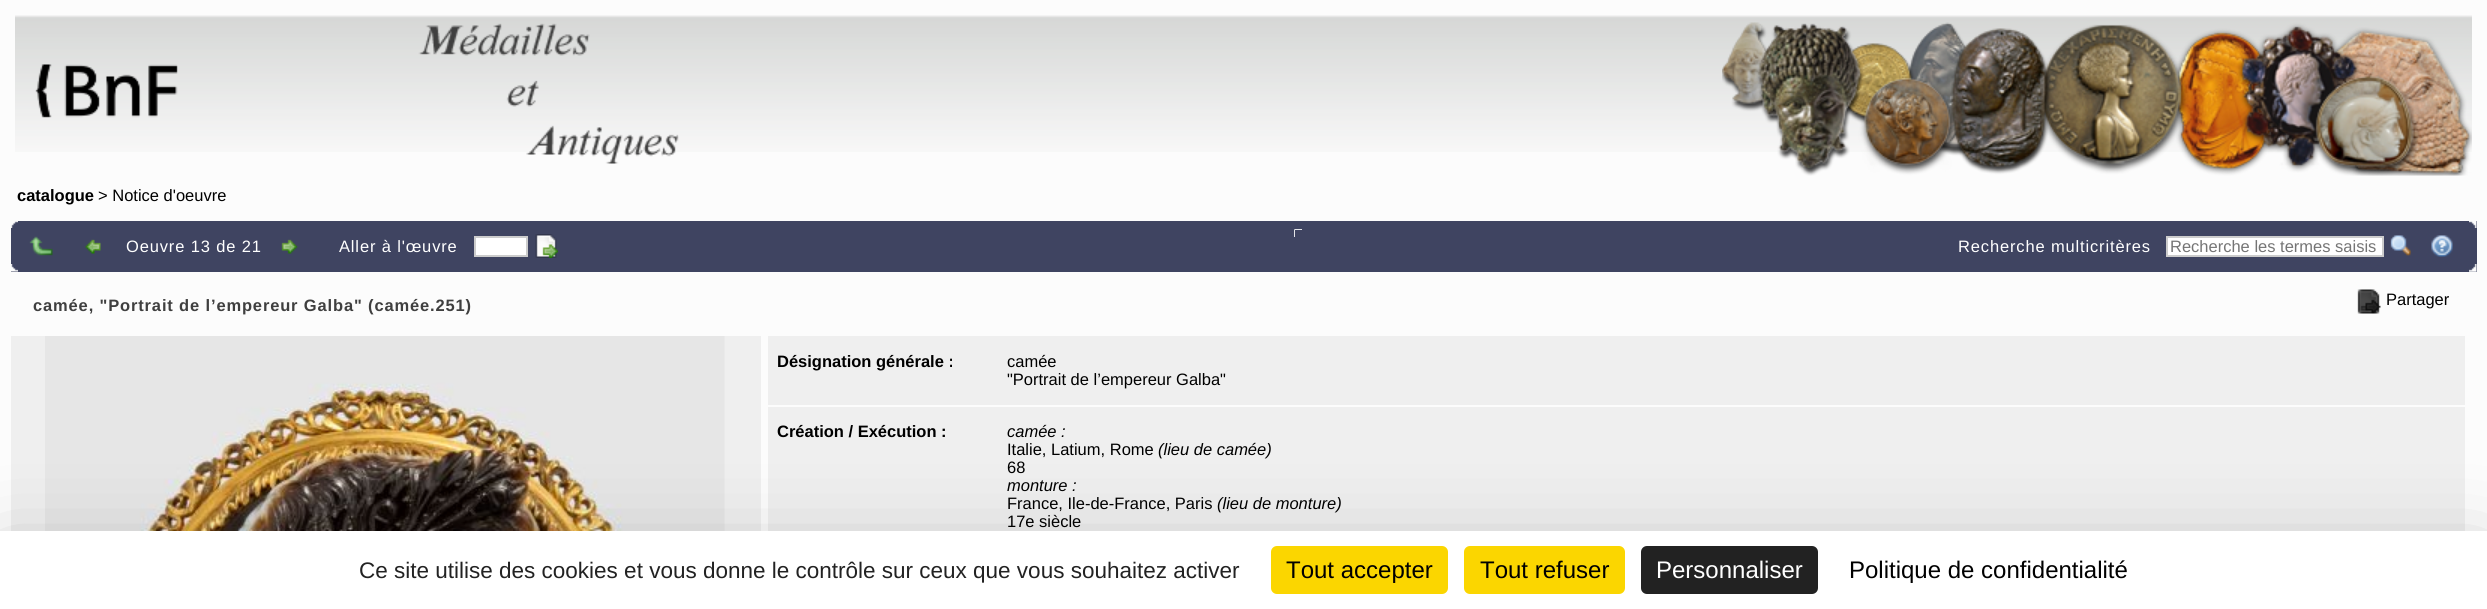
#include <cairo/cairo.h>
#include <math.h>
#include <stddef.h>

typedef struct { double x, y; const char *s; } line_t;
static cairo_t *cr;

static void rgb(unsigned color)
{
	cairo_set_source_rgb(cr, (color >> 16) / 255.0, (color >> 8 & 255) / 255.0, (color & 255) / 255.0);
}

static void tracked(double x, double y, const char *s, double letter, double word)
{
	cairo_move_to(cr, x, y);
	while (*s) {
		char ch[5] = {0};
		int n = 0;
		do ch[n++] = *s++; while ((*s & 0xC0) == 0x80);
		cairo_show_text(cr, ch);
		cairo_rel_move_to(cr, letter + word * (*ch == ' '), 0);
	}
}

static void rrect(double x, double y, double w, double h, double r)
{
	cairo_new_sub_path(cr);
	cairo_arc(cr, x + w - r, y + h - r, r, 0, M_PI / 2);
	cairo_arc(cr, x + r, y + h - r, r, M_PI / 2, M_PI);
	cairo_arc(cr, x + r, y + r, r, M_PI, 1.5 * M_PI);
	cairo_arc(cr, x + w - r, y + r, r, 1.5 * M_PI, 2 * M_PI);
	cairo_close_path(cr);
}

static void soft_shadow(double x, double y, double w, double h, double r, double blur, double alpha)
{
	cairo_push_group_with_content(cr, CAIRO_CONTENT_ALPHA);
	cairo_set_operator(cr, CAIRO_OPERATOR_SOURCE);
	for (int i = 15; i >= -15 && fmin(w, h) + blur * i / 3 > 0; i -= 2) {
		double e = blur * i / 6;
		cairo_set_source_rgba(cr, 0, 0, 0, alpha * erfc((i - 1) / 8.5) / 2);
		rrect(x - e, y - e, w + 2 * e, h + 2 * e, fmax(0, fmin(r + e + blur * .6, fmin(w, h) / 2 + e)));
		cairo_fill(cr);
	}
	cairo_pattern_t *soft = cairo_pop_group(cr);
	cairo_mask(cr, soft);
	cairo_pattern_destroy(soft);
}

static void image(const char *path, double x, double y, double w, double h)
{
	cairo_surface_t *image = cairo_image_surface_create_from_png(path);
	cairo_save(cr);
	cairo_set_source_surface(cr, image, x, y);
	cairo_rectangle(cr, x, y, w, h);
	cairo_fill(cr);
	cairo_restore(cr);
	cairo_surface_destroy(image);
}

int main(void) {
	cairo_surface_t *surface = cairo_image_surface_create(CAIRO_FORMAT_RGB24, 2487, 609);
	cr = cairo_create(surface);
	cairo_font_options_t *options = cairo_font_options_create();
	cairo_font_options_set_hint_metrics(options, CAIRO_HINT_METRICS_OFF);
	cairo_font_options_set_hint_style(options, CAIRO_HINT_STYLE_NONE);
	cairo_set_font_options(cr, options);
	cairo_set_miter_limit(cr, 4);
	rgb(0xfcfcfc);
	cairo_paint(cr);
	image("img/1.png", 15, 15, 2457, 137);
	image("img/2.png", 35, 23, 644, 141);
	image("img/3.png", 1722, 22, 750, 154);
	rgb(0x3f4461);
	cairo_rectangle(cr, 11, 221, 2466, 51);
	cairo_fill(cr);
	image("img/4.png", 11, 221, 7, 7);
	image("img/5.png", 2469, 221, 8, 7);
	image("img/6.png", 11, 264, 7, 8);
	image("img/7.png", 29, 236, 24, 20);
	image("img/8.png", 85, 239, 16, 15);
	image("img/9.png", 281, 239, 17, 15);
	rgb(0xffffff);
	cairo_rectangle(cr, 475, 237, 52, 19);
	cairo_fill_preserve(cr);
	rgb(0xcccccc);
	cairo_stroke(cr);
	image("img/10.png", 535, 234, 23, 24);
	image("img/11.png", 2469, 264, 8, 8);
	image("img/12.png", 1294, 229, 8, 8);
	image("img/13.png", 1294, 229, 8, 8);
	image("img/14.png", 1294, 229, 8, 8);
	rgb(0x3f4461);
	cairo_rectangle(cr, 1295, 230, 7, 7);
	cairo_fill(cr);
	rgb(0xffffff);
	cairo_rectangle(cr, 2167, 237, 216, 19);
	cairo_fill_preserve(cr);
	rgb(0xcccccc);
	cairo_stroke(cr);
	image("img/15.png", 2390, 235, 21, 22);
	image("img/16.png", 2431, 235, 22, 22);
	image("img/17.png", 2469, 271, 8, 1);
	image("img/18.png", 2357, 289, 24, 25);
	rgb(0xefefef);
	cairo_rectangle(cr, 11, 336, 750, 195);
	cairo_fill(cr);
	image("img/19.png", 45, 336, 680, 195);
	cairo_rectangle(cr, 768, 336, 1697, 195);
	cairo_fill(cr);
	rgb(0xfcfcfc);
	cairo_rectangle(cr, 768, 405, 1697, 2);
	cairo_fill(cr);
	rgb(0x000000);
	soft_shadow(0, 561, 2487, 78, 0, 45, 0.25);
	rgb(0xffffff);
	cairo_rectangle(cr, 0, 531, 2487, 78);
	cairo_fill(cr);
	rgb(0xfbd600);
	rrect(1271, 546, 177, 48, 6);
	cairo_fill(cr);
	rrect(1464, 546, 161, 48, 6);
	cairo_fill(cr);
	rgb(0x222222);
	rrect(1641, 546, 177, 48, 6);
	cairo_fill(cr);
	cairo_select_font_face(cr, "Liberation Sans", CAIRO_FONT_SLANT_NORMAL, CAIRO_FONT_WEIGHT_BOLD);
	cairo_set_font_size(cr, 16.5);
	rgb(0x000000);
	cairo_move_to(cr, 17, 201);
	cairo_show_text(cr, "catalogue");
	cairo_select_font_face(cr, "Liberation Sans", CAIRO_FONT_SLANT_NORMAL, CAIRO_FONT_WEIGHT_NORMAL);
	cairo_move_to(cr, 98, 201);
	cairo_show_text(cr, "> Notice d'oeuvre");
	rgb(0xffffff);
	{
		static const line_t items[] = {
			{126, 252, "Oeuvre 13 de 21"},
			{339, 252, "Aller à l'œuvre"},
			{1958, 252, "Recherche multicritères"},
		};
		for (size_t i = 0; i < sizeof items / sizeof *items; i++) {
			tracked(items[i].x, items[i].y, items[i].s, 0.85, 0);
		}
	}
	rgb(0x757575);
	cairo_move_to(cr, 2170, 252);
	cairo_show_text(cr, "Recherche les termes saisis");
	cairo_select_font_face(cr, "Liberation Sans", CAIRO_FONT_SLANT_NORMAL, CAIRO_FONT_WEIGHT_BOLD);
	rgb(0x3f3f3f);
	tracked(33, 311, "camée, \"Portrait de l’empereur Galba\" (camée.251)", 0.85, 0);
	cairo_select_font_face(cr, "Liberation Sans", CAIRO_FONT_SLANT_NORMAL, CAIRO_FONT_WEIGHT_NORMAL);
	rgb(0x000000);
	cairo_move_to(cr, 2386, 305);
	cairo_show_text(cr, "Partager");
	cairo_select_font_face(cr, "Liberation Sans", CAIRO_FONT_SLANT_NORMAL, CAIRO_FONT_WEIGHT_BOLD);
	cairo_move_to(cr, 777, 367);
	cairo_show_text(cr, "Désignation générale :");
	cairo_select_font_face(cr, "Liberation Sans", CAIRO_FONT_SLANT_NORMAL, CAIRO_FONT_WEIGHT_NORMAL);
	cairo_move_to(cr, 1007, 367);
	cairo_show_text(cr, "camée");
	cairo_move_to(cr, 1007, 385);
	cairo_show_text(cr, "\"Portrait de l’empereur Galba\"");
	cairo_select_font_face(cr, "Liberation Sans", CAIRO_FONT_SLANT_NORMAL, CAIRO_FONT_WEIGHT_BOLD);
	cairo_move_to(cr, 777, 437);
	cairo_show_text(cr, "Création / Exécution :");
	cairo_select_font_face(cr, "Liberation Sans", CAIRO_FONT_SLANT_ITALIC, CAIRO_FONT_WEIGHT_NORMAL);
	cairo_move_to(cr, 1007, 437);
	cairo_show_text(cr, "camée :");
	cairo_select_font_face(cr, "Liberation Sans", CAIRO_FONT_SLANT_NORMAL, CAIRO_FONT_WEIGHT_NORMAL);
	cairo_move_to(cr, 1007, 455);
	cairo_show_text(cr, "Italie, Latium, Rome");
	cairo_select_font_face(cr, "Liberation Sans", CAIRO_FONT_SLANT_ITALIC, CAIRO_FONT_WEIGHT_NORMAL);
	cairo_move_to(cr, 1158, 455);
	cairo_show_text(cr, "(lieu de camée)");
	cairo_select_font_face(cr, "Liberation Sans", CAIRO_FONT_SLANT_NORMAL, CAIRO_FONT_WEIGHT_NORMAL);
	cairo_move_to(cr, 1007, 473);
	cairo_show_text(cr, "68");
	cairo_select_font_face(cr, "Liberation Sans", CAIRO_FONT_SLANT_ITALIC, CAIRO_FONT_WEIGHT_NORMAL);
	cairo_move_to(cr, 1007, 491);
	cairo_show_text(cr, "monture :");
	cairo_select_font_face(cr, "Liberation Sans", CAIRO_FONT_SLANT_NORMAL, CAIRO_FONT_WEIGHT_NORMAL);
	cairo_move_to(cr, 1007, 509);
	cairo_show_text(cr, "France, Ile-de-France, Paris");
	cairo_select_font_face(cr, "Liberation Sans", CAIRO_FONT_SLANT_ITALIC, CAIRO_FONT_WEIGHT_NORMAL);
	cairo_move_to(cr, 1217, 509);
	cairo_show_text(cr, "(lieu de monture)");
	cairo_select_font_face(cr, "Liberation Sans", CAIRO_FONT_SLANT_NORMAL, CAIRO_FONT_WEIGHT_NORMAL);
	cairo_move_to(cr, 1007, 527);
	cairo_show_text(cr, "17e siècle");
	cairo_set_font_size(cr, 22.5);
	rgb(0x222222);
	cairo_move_to(cr, 359, 578);
	cairo_show_text(cr, "Ce site utilise des cookies et vous donne le contrôle sur ceux que vous souhaitez activer");
	cairo_set_font_size(cr, 24);
	rgb(0x000000);
	cairo_move_to(cr, 1286, 578);
	cairo_show_text(cr, "Tout accepter");
	cairo_move_to(cr, 1480, 578);
	cairo_show_text(cr, "Tout refuser");
	rgb(0xffffff);
	cairo_move_to(cr, 1656, 578);
	cairo_show_text(cr, "Personnaliser");
	rgb(0x000000);
	cairo_move_to(cr, 1849, 578);
	cairo_show_text(cr, "Politique de confidentialité");
	cairo_surface_write_to_png(surface, "page.png");
	cairo_font_options_destroy(options);
	cairo_destroy(cr);
	cairo_surface_destroy(surface);
	return 0;
}
